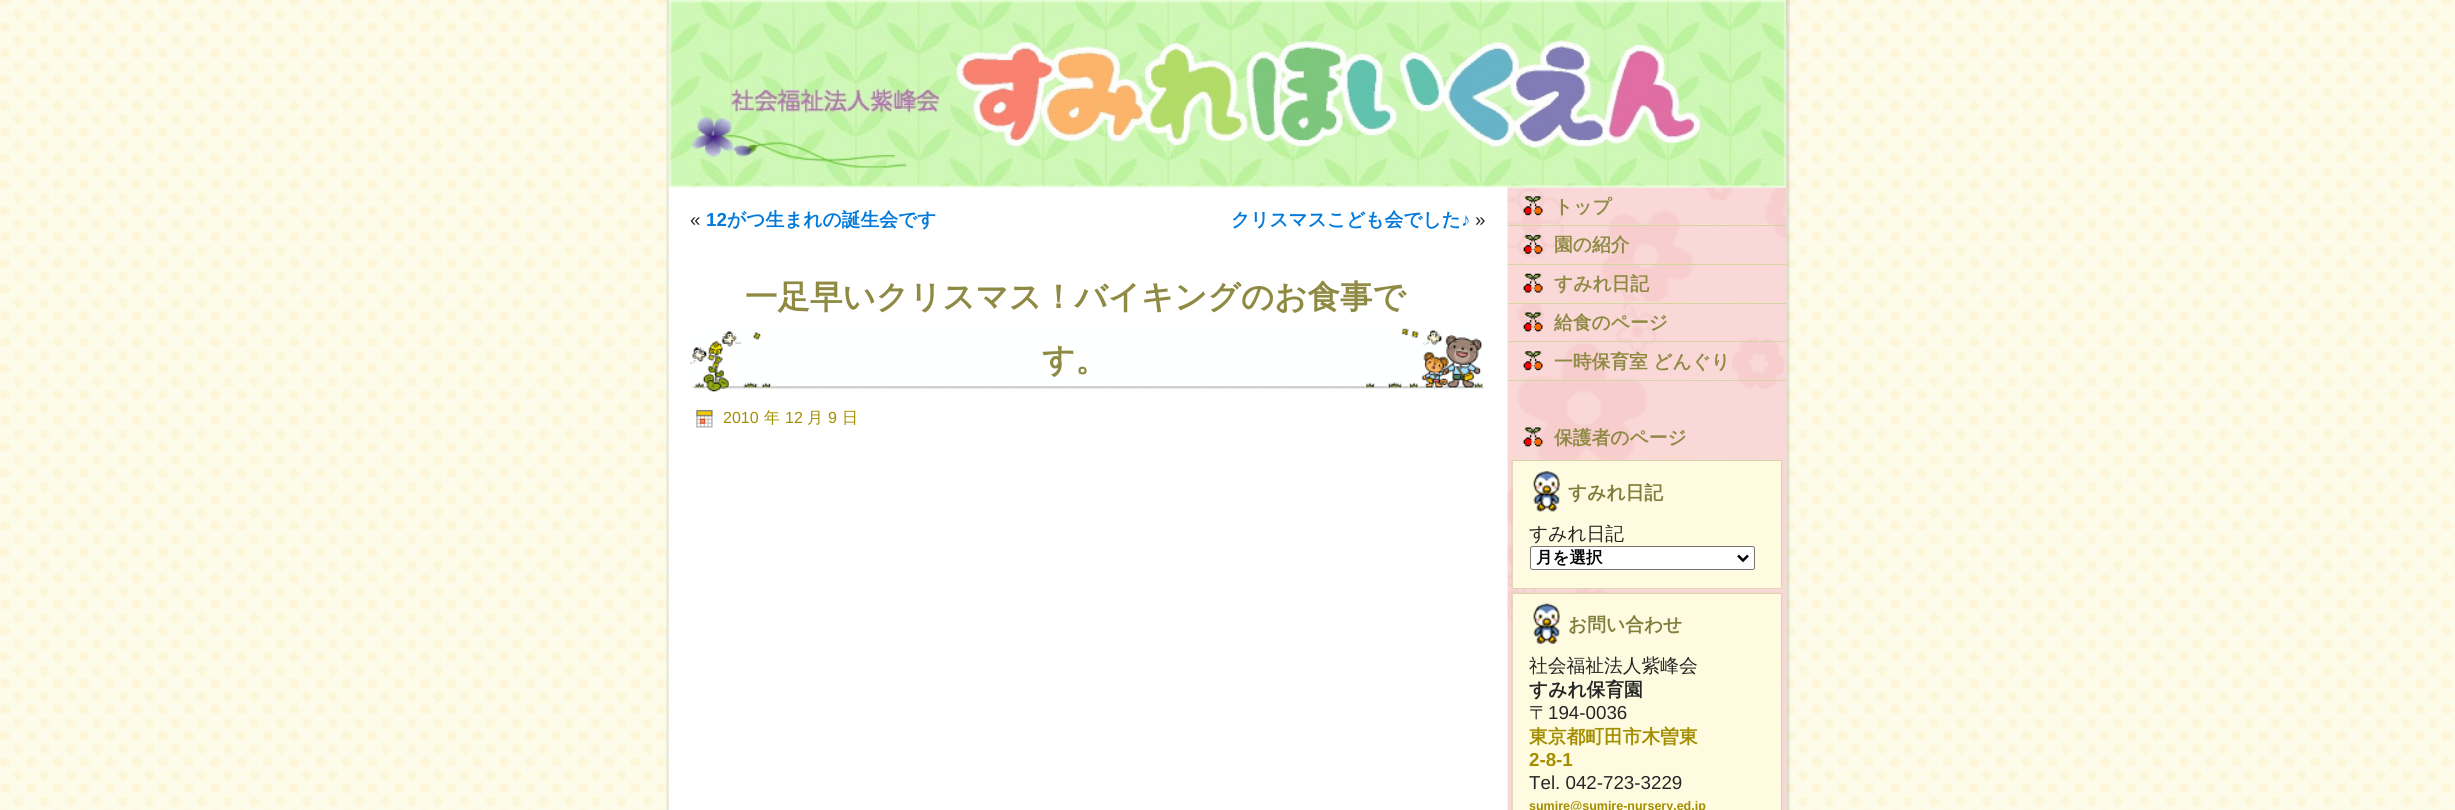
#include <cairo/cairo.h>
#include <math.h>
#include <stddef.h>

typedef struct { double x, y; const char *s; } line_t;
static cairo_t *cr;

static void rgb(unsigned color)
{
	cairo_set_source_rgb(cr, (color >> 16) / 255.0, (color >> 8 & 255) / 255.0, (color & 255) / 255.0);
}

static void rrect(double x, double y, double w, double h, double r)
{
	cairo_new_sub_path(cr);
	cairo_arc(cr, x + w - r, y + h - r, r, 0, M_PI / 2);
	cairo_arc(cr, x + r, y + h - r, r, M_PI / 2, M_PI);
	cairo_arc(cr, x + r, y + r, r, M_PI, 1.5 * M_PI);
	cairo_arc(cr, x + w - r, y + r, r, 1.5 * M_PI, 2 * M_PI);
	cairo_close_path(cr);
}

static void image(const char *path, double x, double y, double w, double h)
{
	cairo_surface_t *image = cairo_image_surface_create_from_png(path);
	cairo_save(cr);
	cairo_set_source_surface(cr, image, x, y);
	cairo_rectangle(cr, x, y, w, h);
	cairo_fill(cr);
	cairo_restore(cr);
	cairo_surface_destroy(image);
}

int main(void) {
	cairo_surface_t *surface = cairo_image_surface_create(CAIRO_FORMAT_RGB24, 2455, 810);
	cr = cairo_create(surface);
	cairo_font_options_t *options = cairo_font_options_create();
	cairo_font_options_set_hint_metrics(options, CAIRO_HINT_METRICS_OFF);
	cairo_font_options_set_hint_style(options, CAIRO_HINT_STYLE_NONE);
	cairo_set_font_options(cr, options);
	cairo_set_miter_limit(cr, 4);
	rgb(0xffffff);
	cairo_paint(cr);
	image("img/1.png", 0, 0, 2455, 810);
	image("img/2.png", 666, 0, 3, 37);
	image("img/3.png", 1786, 0, 4, 37);
	image("img/4.png", 666, 36, 39, 774);
	rgb(0xffffff);
	cairo_rectangle(cr, 705, 187, 1045, 623);
	cairo_fill(cr);
	image("img/5.png", 1750, 36, 40, 774);
	image("img/9.png", 1507, 187, 280, 623);
	image("img/6.png", 669, 0, 1117, 188);
	image("img/7.png", 690, 328, 794, 64);
	image("img/8.png", 696, 409, 17, 19);
	image("img/10.png", 1508, 196, 243, 29);
	image("img/11.png", 1751, 224, 25, 1);
	rgb(0xd5d2a5);
	cairo_rectangle(cr, 1508, 225, 278, 1);
	cairo_fill(cr);
	image("img/12.png", 1507, 234, 245, 30);
	image("img/13.png", 1751, 263, 35, 1);
	cairo_rectangle(cr, 1508, 264, 278, 1);
	cairo_fill(cr);
	image("img/14.png", 1507, 273, 245, 30);
	image("img/15.png", 1751, 302, 35, 1);
	cairo_rectangle(cr, 1508, 303, 278, 1);
	cairo_fill(cr);
	image("img/16.png", 1507, 312, 36, 30);
	cairo_rectangle(cr, 1508, 341, 278, 1);
	cairo_fill(cr);
	image("img/17.png", 1508, 351, 243, 29);
	image("img/18.png", 1752, 379, 24, 1);
	cairo_rectangle(cr, 1508, 380, 278, 1);
	cairo_fill(cr);
	image("img/19.png", 1507, 427, 245, 30);
	image("img/20.png", 1751, 456, 35, 1);
	image("img/21.png", 1511, 460, 2, 2);
	image("img/22.png", 1512, 460, 269, 2);
	image("img/23.png", 1781, 460, 2, 2);
	image("img/27.png", 1511, 587, 2, 2);
	image("img/28.png", 1512, 587, 269, 2);
	image("img/24.png", 1511, 461, 2, 127);
	rgb(0xfffbe0);
	cairo_rectangle(cr, 1513, 461, 268, 127);
	cairo_fill(cr);
	image("img/29.png", 1781, 587, 2, 2);
	image("img/25.png", 1781, 461, 2, 127);
	image("img/26.png", 1533, 471, 27, 41);
	rgb(0xffffff);
	rrect(1530.5, 546.5, 224, 23, 2);
	cairo_fill_preserve(cr);
	rgb(0x767676);
	cairo_set_line_width(cr, 1);
	cairo_stroke(cr);
	cairo_new_path(cr);
	cairo_move_to(cr, 1738, 555.5);
	cairo_line_to(cr, 1743, 560.5);
	cairo_line_to(cr, 1748, 555.5);
	rgb(0x000000);
	cairo_set_line_width(cr, 2.5);
	cairo_stroke(cr);
	image("img/30.png", 1511, 592, 2, 2);
	image("img/31.png", 1512, 592, 269, 2);
	image("img/32.png", 1781, 592, 2, 2);
	image("img/33.png", 1511, 594, 2, 216);
	rgb(0xfffbe0);
	cairo_rectangle(cr, 1513, 594, 268, 216);
	cairo_fill(cr);
	image("img/34.png", 1781, 594, 2, 216);
	image("img/35.png", 1533, 603, 27, 41);
	cairo_select_font_face(cr, "Liberation Sans", CAIRO_FONT_SLANT_NORMAL, CAIRO_FONT_WEIGHT_NORMAL);
	cairo_set_font_size(cr, 18.75);
	rgb(0x262626);
	cairo_move_to(cr, 690, 226);
	cairo_show_text(cr, "«");
	cairo_select_font_face(cr, "Liberation Sans", CAIRO_FONT_SLANT_NORMAL, CAIRO_FONT_WEIGHT_BOLD);
	rgb(0x0079db);
	cairo_move_to(cr, 706, 226);
	cairo_show_text(cr, "12");
	cairo_select_font_face(cr, "WenQuanYi Zen Hei", CAIRO_FONT_SLANT_NORMAL, CAIRO_FONT_WEIGHT_BOLD);
	cairo_move_to(cr, 727, 226);
	cairo_show_text(cr, "がつ生まれの誕生会です");
	cairo_move_to(cr, 1231, 226);
	cairo_show_text(cr, "クリスマスこども会でした");
	cairo_select_font_face(cr, "Liberation Sans", CAIRO_FONT_SLANT_NORMAL, CAIRO_FONT_WEIGHT_BOLD);
	cairo_move_to(cr, 1461, 226);
	cairo_show_text(cr, "♪");
	cairo_select_font_face(cr, "Liberation Sans", CAIRO_FONT_SLANT_NORMAL, CAIRO_FONT_WEIGHT_NORMAL);
	rgb(0x262626);
	cairo_move_to(cr, 1475, 226);
	cairo_show_text(cr, "»");
	cairo_select_font_face(cr, "WenQuanYi Zen Hei", CAIRO_FONT_SLANT_NORMAL, CAIRO_FONT_WEIGHT_BOLD);
	cairo_set_font_size(cr, 32.5);
	rgb(0x8e8a43);
	cairo_move_to(cr, 745, 308);
	cairo_show_text(cr, "一足早いクリスマス！バイキングのお食事で");
	cairo_move_to(cr, 1042, 371);
	cairo_show_text(cr, "す。");
	cairo_select_font_face(cr, "Liberation Sans", CAIRO_FONT_SLANT_NORMAL, CAIRO_FONT_WEIGHT_NORMAL);
	cairo_set_font_size(cr, 16);
	rgb(0xa38d00);
	cairo_move_to(cr, 723, 423);
	cairo_show_text(cr, "2010");
	cairo_select_font_face(cr, "WenQuanYi Zen Hei Medium", CAIRO_FONT_SLANT_NORMAL, CAIRO_FONT_WEIGHT_NORMAL);
	cairo_move_to(cr, 764, 423);
	cairo_show_text(cr, "年");
	cairo_select_font_face(cr, "Liberation Sans", CAIRO_FONT_SLANT_NORMAL, CAIRO_FONT_WEIGHT_NORMAL);
	cairo_move_to(cr, 785, 423);
	cairo_show_text(cr, "12");
	cairo_select_font_face(cr, "WenQuanYi Zen Hei Medium", CAIRO_FONT_SLANT_NORMAL, CAIRO_FONT_WEIGHT_NORMAL);
	cairo_move_to(cr, 807, 423);
	cairo_show_text(cr, "月");
	cairo_select_font_face(cr, "Liberation Sans", CAIRO_FONT_SLANT_NORMAL, CAIRO_FONT_WEIGHT_NORMAL);
	cairo_move_to(cr, 828, 423);
	cairo_show_text(cr, "9");
	cairo_select_font_face(cr, "WenQuanYi Zen Hei Medium", CAIRO_FONT_SLANT_NORMAL, CAIRO_FONT_WEIGHT_NORMAL);
	cairo_move_to(cr, 842, 423);
	cairo_show_text(cr, "日");
	cairo_select_font_face(cr, "WenQuanYi Zen Hei", CAIRO_FONT_SLANT_NORMAL, CAIRO_FONT_WEIGHT_BOLD);
	cairo_set_font_size(cr, 18.75);
	rgb(0x8e8a43);
	{
		static const line_t items[] = {
			{1554, 213, "トップ"},
			{1554, 251, "園の紹介"},
			{1554, 290, "すみれ日記"},
			{1554, 329, "給食のページ"},
			{1554, 368, "一時保育室 どんぐり"},
			{1554, 444, "保護者のページ"},
		};
		for (size_t i = 0; i < sizeof items / sizeof *items; i++) {
			cairo_move_to(cr, items[i].x, items[i].y);
			cairo_show_text(cr, items[i].s);
		}
	}
	rgb(0x807d3c);
	cairo_move_to(cr, 1568, 499);
	cairo_show_text(cr, "すみれ日記");
	cairo_select_font_face(cr, "WenQuanYi Zen Hei Medium", CAIRO_FONT_SLANT_NORMAL, CAIRO_FONT_WEIGHT_NORMAL);
	rgb(0x262626);
	cairo_move_to(cr, 1529, 540);
	cairo_show_text(cr, "すみれ日記");
	cairo_select_font_face(cr, "WenQuanYi Zen Hei", CAIRO_FONT_SLANT_NORMAL, CAIRO_FONT_WEIGHT_BOLD);
	cairo_set_font_size(cr, 16.5);
	rgb(0x000000);
	cairo_move_to(cr, 1536, 563);
	cairo_show_text(cr, "月を選択");
	cairo_set_font_size(cr, 18.75);
	rgb(0x807d3c);
	cairo_move_to(cr, 1568, 631);
	cairo_show_text(cr, "お問い合わせ");
	cairo_select_font_face(cr, "WenQuanYi Zen Hei Medium", CAIRO_FONT_SLANT_NORMAL, CAIRO_FONT_WEIGHT_NORMAL);
	rgb(0x262626);
	cairo_move_to(cr, 1529, 672);
	cairo_show_text(cr, "社会福祉法人紫峰会");
	cairo_select_font_face(cr, "WenQuanYi Zen Hei", CAIRO_FONT_SLANT_NORMAL, CAIRO_FONT_WEIGHT_BOLD);
	cairo_move_to(cr, 1529, 696);
	cairo_show_text(cr, "すみれ保育園");
	cairo_select_font_face(cr, "WenQuanYi Zen Hei Medium", CAIRO_FONT_SLANT_NORMAL, CAIRO_FONT_WEIGHT_NORMAL);
	cairo_move_to(cr, 1529, 719);
	cairo_show_text(cr, "〒");
	cairo_select_font_face(cr, "Liberation Sans", CAIRO_FONT_SLANT_NORMAL, CAIRO_FONT_WEIGHT_NORMAL);
	cairo_move_to(cr, 1548, 719);
	cairo_show_text(cr, "194-0036");
	cairo_select_font_face(cr, "WenQuanYi Zen Hei", CAIRO_FONT_SLANT_NORMAL, CAIRO_FONT_WEIGHT_BOLD);
	rgb(0xa38d00);
	cairo_move_to(cr, 1529, 743);
	cairo_show_text(cr, "東京都町田市木曽東");
	cairo_select_font_face(cr, "Liberation Sans", CAIRO_FONT_SLANT_NORMAL, CAIRO_FONT_WEIGHT_BOLD);
	cairo_move_to(cr, 1529, 766);
	cairo_show_text(cr, "2-8-1");
	cairo_select_font_face(cr, "Liberation Sans", CAIRO_FONT_SLANT_NORMAL, CAIRO_FONT_WEIGHT_NORMAL);
	rgb(0x262626);
	cairo_move_to(cr, 1529, 789);
	cairo_show_text(cr, "Tel. 042-723-3229");
	cairo_select_font_face(cr, "Liberation Sans", CAIRO_FONT_SLANT_NORMAL, CAIRO_FONT_WEIGHT_BOLD);
	cairo_set_font_size(cr, 12.5);
	rgb(0xa38d00);
	cairo_move_to(cr, 1529, 810);
	cairo_show_text(cr, "sumire@sumire-nursery.ed.jp");
	cairo_surface_write_to_png(surface, "page.png");
	cairo_font_options_destroy(options);
	cairo_destroy(cr);
	cairo_surface_destroy(surface);
	return 0;
}
